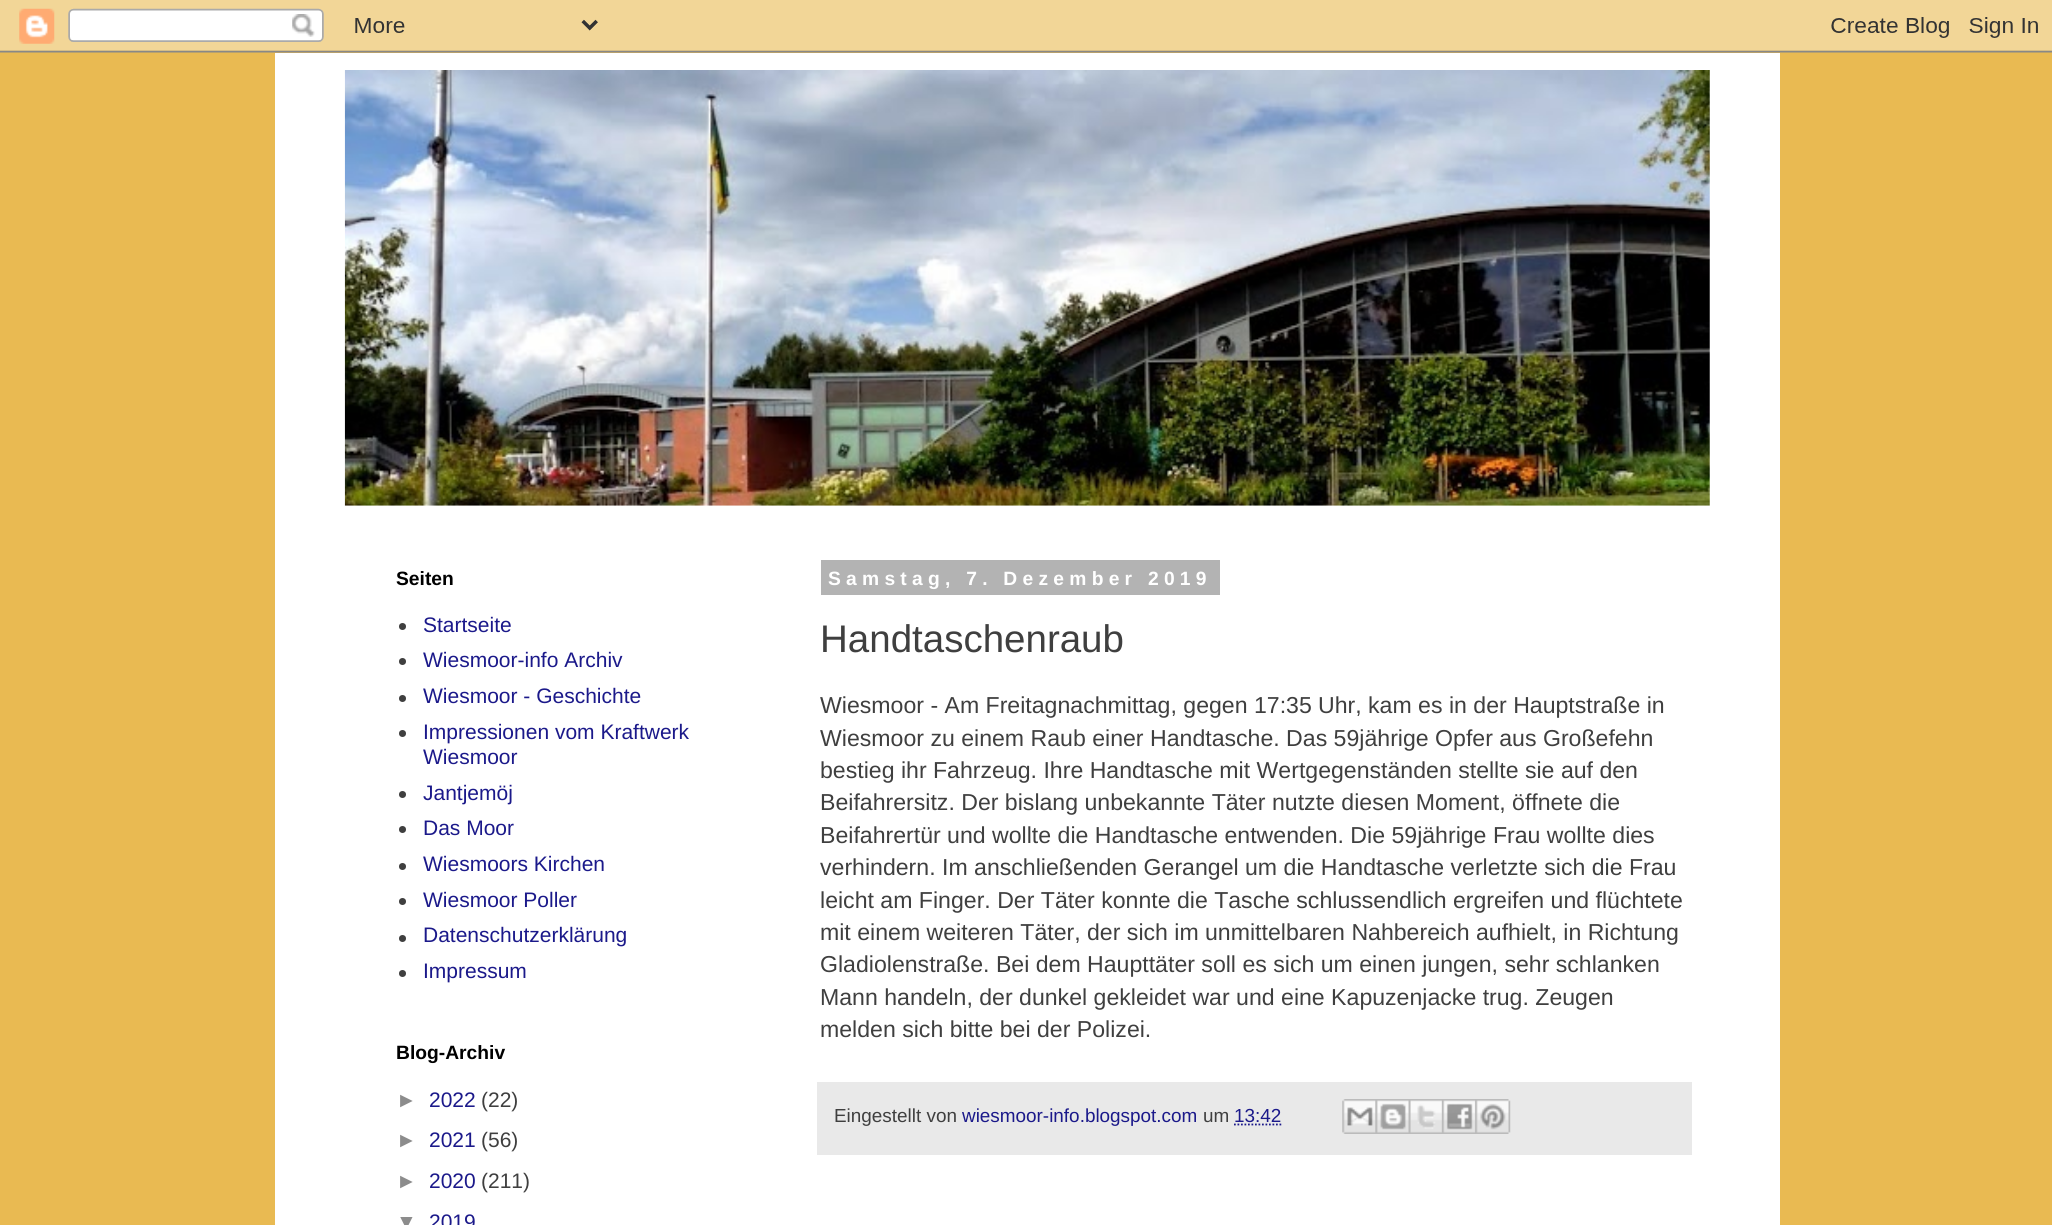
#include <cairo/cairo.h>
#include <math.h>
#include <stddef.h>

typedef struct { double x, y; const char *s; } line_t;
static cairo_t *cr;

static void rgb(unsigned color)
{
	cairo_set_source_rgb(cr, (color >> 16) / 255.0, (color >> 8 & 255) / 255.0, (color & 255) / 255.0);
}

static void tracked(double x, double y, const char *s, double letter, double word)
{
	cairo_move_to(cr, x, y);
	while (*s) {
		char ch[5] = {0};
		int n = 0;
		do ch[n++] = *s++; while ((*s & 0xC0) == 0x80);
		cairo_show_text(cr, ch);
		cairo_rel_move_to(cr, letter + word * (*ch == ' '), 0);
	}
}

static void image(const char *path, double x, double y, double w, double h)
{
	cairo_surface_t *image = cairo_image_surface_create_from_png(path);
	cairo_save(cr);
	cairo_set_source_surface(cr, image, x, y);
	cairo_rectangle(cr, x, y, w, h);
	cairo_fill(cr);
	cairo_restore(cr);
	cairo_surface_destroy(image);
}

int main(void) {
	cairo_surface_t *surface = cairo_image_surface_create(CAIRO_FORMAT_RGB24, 2052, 1225);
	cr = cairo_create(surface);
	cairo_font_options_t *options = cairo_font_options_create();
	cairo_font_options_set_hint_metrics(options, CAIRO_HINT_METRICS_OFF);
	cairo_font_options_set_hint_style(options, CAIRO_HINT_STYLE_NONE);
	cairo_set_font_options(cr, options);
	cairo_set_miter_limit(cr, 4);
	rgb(0xe9ba52);
	cairo_paint(cr);
	image("img/1.png", 0, 0, 2052, 53);
	rgb(0xffffff);
	cairo_rectangle(cr, 275, 53, 1505, 1172);
	cairo_fill(cr);
	image("img/2.png", 344, 70, 1366, 436);
	rgb(0x3f3f3f);
	cairo_arc(cr, 402.5, 626.5, 3.5, 0, 2 * M_PI);
	cairo_fill(cr);
	cairo_arc(cr, 402.5, 661.5, 3.5, 0, 2 * M_PI);
	cairo_fill(cr);
	cairo_arc(cr, 402.5, 698.5, 3.5, 0, 2 * M_PI);
	cairo_fill(cr);
	cairo_arc(cr, 402.5, 733.5, 3.5, 0, 2 * M_PI);
	cairo_fill(cr);
	cairo_arc(cr, 402.5, 794.5, 3.5, 0, 2 * M_PI);
	cairo_fill(cr);
	cairo_arc(cr, 402.5, 829.5, 3.5, 0, 2 * M_PI);
	cairo_fill(cr);
	cairo_arc(cr, 402.5, 866.5, 3.5, 0, 2 * M_PI);
	cairo_fill(cr);
	cairo_arc(cr, 402.5, 901.5, 3.5, 0, 2 * M_PI);
	cairo_fill(cr);
	cairo_arc(cr, 402.5, 938.5, 3.5, 0, 2 * M_PI);
	cairo_fill(cr);
	cairo_arc(cr, 402.5, 973.5, 3.5, 0, 2 * M_PI);
	cairo_fill(cr);
	rgb(0xb3b3b3);
	cairo_rectangle(cr, 821, 560, 399, 35);
	cairo_fill(cr);
	rgb(0xe9e9e9);
	cairo_rectangle(cr, 817, 1082, 875, 73);
	cairo_fill(cr);
	cairo_new_path(cr);
	cairo_move_to(cr, 1234, 1124.5);
	cairo_line_to(cr, 1281.5, 1124.5);
	rgb(0x1b198a);
	cairo_set_line_width(cr, 1.8);
	cairo_set_dash(cr, (double[]){1.75, 1.75}, 2, 0);
	cairo_stroke(cr);
	image("img/3.png", 1342, 1099, 34, 35);
	image("img/4.png", 1375, 1099, 34, 35);
	image("img/5.png", 1408, 1099, 34, 35);
	image("img/6.png", 1442, 1099, 34, 35);
	image("img/7.png", 1475, 1099, 36, 35);
	cairo_select_font_face(cr, "Liberation Sans", CAIRO_FONT_SLANT_NORMAL, CAIRO_FONT_WEIGHT_BOLD);
	cairo_set_font_size(cr, 19.25);
	rgb(0x000000);
	cairo_move_to(cr, 396, 585);
	cairo_show_text(cr, "Seiten");
	cairo_select_font_face(cr, "Liberation Sans", CAIRO_FONT_SLANT_NORMAL, CAIRO_FONT_WEIGHT_NORMAL);
	cairo_set_font_size(cr, 21);
	rgb(0x1b198a);
	{
		static const line_t items[] = {
			{423, 632, "Startseite"},
			{423, 667, "Wiesmoor-info Archiv"},
			{423, 703, "Wiesmoor - Geschichte"},
			{423, 739, "Impressionen vom Kraftwerk"},
			{423, 764, "Wiesmoor"},
			{423, 800, "Jantjemöj"},
			{423, 835, "Das Moor"},
			{423, 871, "Wiesmoors Kirchen"},
			{423, 907, "Wiesmoor Poller"},
			{423, 942, "Datenschutzerklärung"},
			{423, 978, "Impressum"},
		};
		for (size_t i = 0; i < sizeof items / sizeof *items; i++) {
			cairo_move_to(cr, items[i].x, items[i].y);
			cairo_show_text(cr, items[i].s);
		}
	}
	cairo_select_font_face(cr, "Liberation Sans", CAIRO_FONT_SLANT_NORMAL, CAIRO_FONT_WEIGHT_BOLD);
	cairo_set_font_size(cr, 19.25);
	rgb(0x000000);
	cairo_move_to(cr, 396, 1059);
	cairo_show_text(cr, "Blog-Archiv");
	cairo_select_font_face(cr, "Liberation Sans", CAIRO_FONT_SLANT_NORMAL, CAIRO_FONT_WEIGHT_NORMAL);
	cairo_set_font_size(cr, 21);
	rgb(0x8c8c8c);
	cairo_move_to(cr, 396, 1107);
	cairo_show_text(cr, "►");
	rgb(0x1b198a);
	cairo_move_to(cr, 429, 1107);
	cairo_show_text(cr, "2022");
	rgb(0x3f3f3f);
	cairo_move_to(cr, 481, 1107);
	cairo_show_text(cr, "(22)");
	rgb(0x8c8c8c);
	cairo_move_to(cr, 396, 1147);
	cairo_show_text(cr, "►");
	rgb(0x1b198a);
	cairo_move_to(cr, 429, 1147);
	cairo_show_text(cr, "2021");
	rgb(0x3f3f3f);
	cairo_move_to(cr, 481, 1147);
	cairo_show_text(cr, "(56)");
	rgb(0x8c8c8c);
	cairo_move_to(cr, 396, 1188);
	cairo_show_text(cr, "►");
	rgb(0x1b198a);
	cairo_move_to(cr, 429, 1188);
	cairo_show_text(cr, "2020");
	rgb(0x3f3f3f);
	cairo_move_to(cr, 481, 1188);
	cairo_show_text(cr, "(211)");
	rgb(0x8c8c8c);
	cairo_move_to(cr, 396, 1229);
	cairo_show_text(cr, "▼");
	rgb(0x1b198a);
	cairo_move_to(cr, 429, 1229);
	cairo_show_text(cr, "2019");
	cairo_select_font_face(cr, "Liberation Sans", CAIRO_FONT_SLANT_NORMAL, CAIRO_FONT_WEIGHT_BOLD);
	cairo_set_font_size(cr, 19.25);
	rgb(0xffffff);
	tracked(828, 585, "Samstag, 7. Dezember 2019", 5.25, 0);
	cairo_select_font_face(cr, "Liberation Sans", CAIRO_FONT_SLANT_NORMAL, CAIRO_FONT_WEIGHT_NORMAL);
	cairo_set_font_size(cr, 38.5);
	rgb(0x3f3f3f);
	cairo_move_to(cr, 820, 652);
	cairo_show_text(cr, "Handtaschenraub");
	cairo_set_font_size(cr, 23.1);
	{
		static const line_t items[] = {
			{820, 713, "Wiesmoor - Am Freitagnachmittag, gegen 17:35"},
			{1318, 713, "Uhr, kam es in der Hauptstraße in"},
			{820, 746, "Wiesmoor zu einem Raub einer"},
			{1150, 746, "Handtasche. Das 59jährige Opfer aus Großefehn"},
			{820, 778, "bestieg ihr Fahrzeug. Ihre Handtasche mit Wertgegenständen stellte sie auf den"},
			{820, 810, "Beifahrersitz. Der bislang unbekannte Täter nutzte diesen Moment, öffnete die"},
			{820, 843, "Beifahrertür und wollte die Handtasche entwenden. Die 59jährige Frau wollte dies"},
			{820, 875, "verhindern. Im anschließenden Gerangel um die Handtasche verletzte sich die Frau"},
			{820, 908, "leicht am Finger. Der Täter konnte die Tasche schlussendlich ergreifen und flüchtete"},
			{820, 940, "mit einem weiteren Täter, der sich im"},
			{1205, 940, "unmittelbaren Nahbereich aufhielt, in Richtung"},
			{820, 972, "Gladiolenstraße. Bei dem Haupttäter soll es sich um einen jungen, sehr schlanken"},
			{820, 1005, "Mann handeln, der dunkel gekleidet war und eine Kapuzenjacke trug. Zeugen"},
			{820, 1037, "melden sich bitte bei der Polizei."},
		};
		for (size_t i = 0; i < sizeof items / sizeof *items; i++) {
			cairo_move_to(cr, items[i].x, items[i].y);
			cairo_show_text(cr, items[i].s);
		}
	}
	cairo_set_font_size(cr, 18.9);
	cairo_move_to(cr, 834, 1122);
	cairo_show_text(cr, "Eingestellt von");
	rgb(0x1b198a);
	cairo_move_to(cr, 962, 1122);
	cairo_show_text(cr, "wiesmoor-info.blogspot.com");
	rgb(0x3f3f3f);
	cairo_move_to(cr, 1203, 1122);
	cairo_show_text(cr, "um");
	rgb(0x1b198a);
	cairo_move_to(cr, 1234, 1122);
	cairo_show_text(cr, "13:42");
	cairo_surface_write_to_png(surface, "page.png");
	cairo_font_options_destroy(options);
	cairo_destroy(cr);
	cairo_surface_destroy(surface);
	return 0;
}
